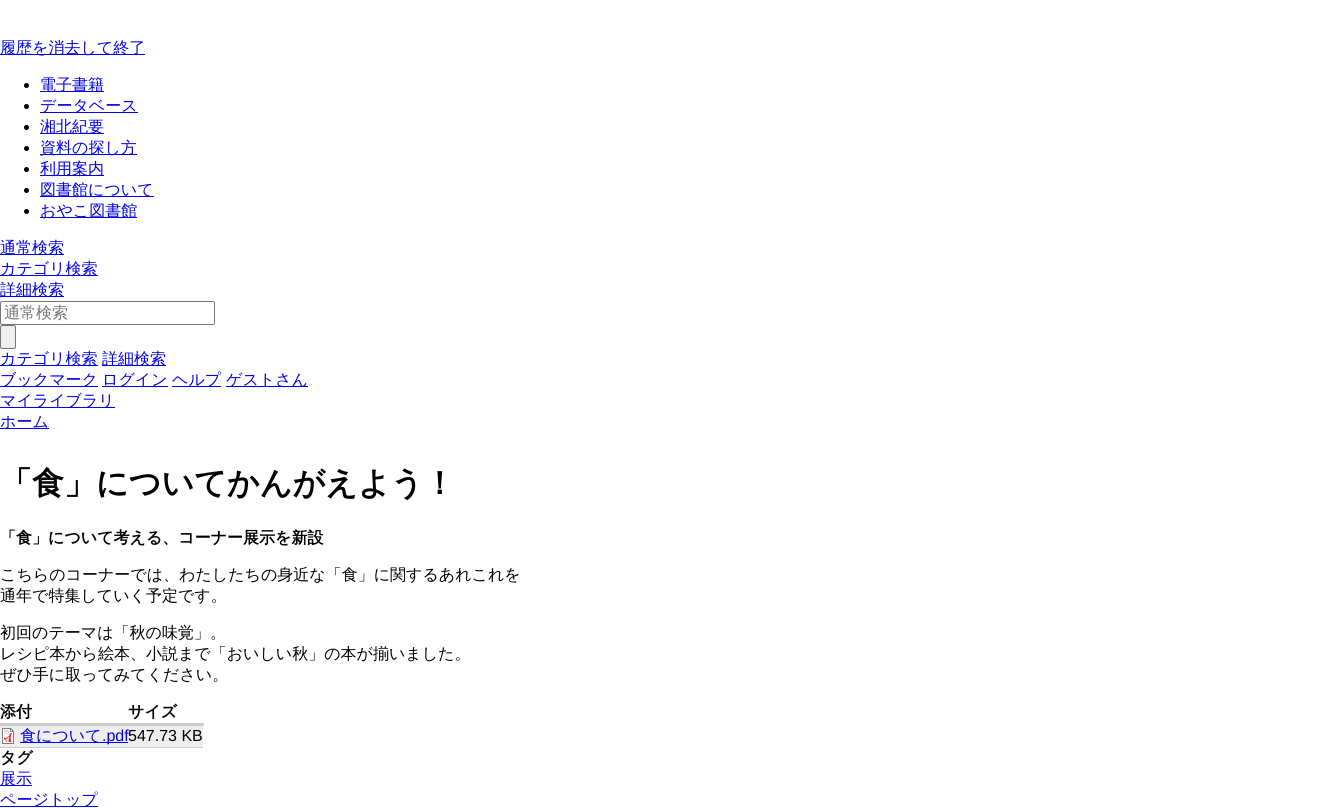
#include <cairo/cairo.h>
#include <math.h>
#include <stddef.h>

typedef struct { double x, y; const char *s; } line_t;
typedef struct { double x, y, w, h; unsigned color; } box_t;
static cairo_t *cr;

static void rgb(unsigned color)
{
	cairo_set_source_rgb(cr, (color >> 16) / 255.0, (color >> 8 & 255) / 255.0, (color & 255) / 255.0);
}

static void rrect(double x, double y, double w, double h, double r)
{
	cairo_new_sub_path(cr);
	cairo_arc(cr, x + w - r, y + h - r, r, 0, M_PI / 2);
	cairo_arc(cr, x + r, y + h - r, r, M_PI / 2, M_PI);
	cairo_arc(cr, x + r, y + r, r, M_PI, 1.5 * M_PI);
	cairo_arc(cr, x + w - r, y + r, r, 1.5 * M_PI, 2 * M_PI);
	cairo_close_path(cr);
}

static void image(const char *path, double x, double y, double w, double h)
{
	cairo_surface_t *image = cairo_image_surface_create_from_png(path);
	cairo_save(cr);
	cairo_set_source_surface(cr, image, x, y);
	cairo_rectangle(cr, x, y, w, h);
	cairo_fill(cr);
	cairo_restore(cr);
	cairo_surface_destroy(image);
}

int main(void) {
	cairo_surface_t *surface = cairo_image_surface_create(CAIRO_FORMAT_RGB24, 1338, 808);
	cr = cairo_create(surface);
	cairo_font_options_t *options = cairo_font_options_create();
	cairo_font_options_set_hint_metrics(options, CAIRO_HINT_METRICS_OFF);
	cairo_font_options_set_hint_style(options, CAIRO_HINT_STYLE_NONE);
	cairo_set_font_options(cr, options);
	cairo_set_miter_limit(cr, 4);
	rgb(0xffffff);
	cairo_paint(cr);
	rgb(0x0000ee);
	cairo_rectangle(cr, 0, 54, 145, 1);
	cairo_fill(cr);
	rgb(0x000000);
	cairo_arc(cr, 26.5, 85.5, 2.5, 0, 2 * M_PI);
	cairo_fill(cr);
	rgb(0x0000ee);
	cairo_rectangle(cr, 40, 91, 64, 1);
	cairo_fill(cr);
	rgb(0x000000);
	cairo_arc(cr, 26.5, 106.5, 2.5, 0, 2 * M_PI);
	cairo_fill(cr);
	rgb(0x0000ee);
	cairo_rectangle(cr, 40, 112, 98, 1);
	cairo_fill(cr);
	rgb(0x000000);
	cairo_arc(cr, 26.5, 127.5, 2.5, 0, 2 * M_PI);
	cairo_fill(cr);
	rgb(0x0000ee);
	cairo_rectangle(cr, 40, 133, 64, 1);
	cairo_fill(cr);
	rgb(0x000000);
	cairo_arc(cr, 26.5, 148.5, 2.5, 0, 2 * M_PI);
	cairo_fill(cr);
	rgb(0x0000ee);
	cairo_rectangle(cr, 40, 154, 97, 1);
	cairo_fill(cr);
	rgb(0x000000);
	cairo_arc(cr, 26.5, 169.5, 2.5, 0, 2 * M_PI);
	cairo_fill(cr);
	rgb(0x0000ee);
	cairo_rectangle(cr, 40, 175, 64, 1);
	cairo_fill(cr);
	rgb(0x000000);
	cairo_arc(cr, 26.5, 190.5, 2.5, 0, 2 * M_PI);
	cairo_fill(cr);
	rgb(0x0000ee);
	cairo_rectangle(cr, 40, 196, 114, 1);
	cairo_fill(cr);
	rgb(0x000000);
	cairo_arc(cr, 26.5, 211.5, 2.5, 0, 2 * M_PI);
	cairo_fill(cr);
	{
		static const box_t items[] = {
			{40, 217, 97, 1, 0x0000ee},
			{0, 254, 64, 1, 0x0000ee},
			{0, 275, 98, 1, 0x0000ee},
			{0, 296, 64, 1, 0x0000ee},
		};
		for (size_t i = 0; i < sizeof items / sizeof *items; i++) {
			rgb(items[i].color);
			cairo_rectangle(cr, items[i].x, items[i].y, items[i].w, items[i].h);
			cairo_fill(cr);
		}
	}
	rrect(0.5, 301.5, 214, 23, 1.5);
	rgb(0x767676);
	cairo_set_line_width(cr, 1);
	cairo_stroke(cr);
	rgb(0xefefef);
	rrect(0.5, 325.5, 15, 23, 1.5);
	cairo_fill_preserve(cr);
	rgb(0x767676);
	cairo_stroke(cr);
	{
		static const box_t items[] = {
			{0, 365, 98, 1, 0x0000ee},
			{102, 365, 64, 1, 0x0000ee},
			{0, 386, 98, 1, 0x0000ee},
			{102, 386, 66, 1, 0x0000ee},
			{172, 386, 49, 1, 0x0000ee},
			{226, 386, 82, 1, 0x0000ee},
			{0, 407, 115, 1, 0x0000ee},
			{0, 428, 49, 1, 0x0000ee},
			{0, 723, 204, 3, 0xcccccc},
			{0, 726, 203, 21, 0xeeeeee},
			{0, 747, 203, 1, 0xcccccc},
		};
		for (size_t i = 0; i < sizeof items / sizeof *items; i++) {
			rgb(items[i].color);
			cairo_rectangle(cr, items[i].x, items[i].y, items[i].w, items[i].h);
			cairo_fill(cr);
		}
	}
	image("img/1.png", 2, 728, 12, 16);
	{
		static const box_t items[] = {
			{20, 742, 108, 1, 0x0000ee},
			{0, 785, 32, 1, 0x0000ee},
			{0, 806, 98, 1, 0x0000ee},
		};
		for (size_t i = 0; i < sizeof items / sizeof *items; i++) {
			rgb(items[i].color);
			cairo_rectangle(cr, items[i].x, items[i].y, items[i].w, items[i].h);
			cairo_fill(cr);
		}
	}
	cairo_select_font_face(cr, "WenQuanYi Zen Hei Medium", CAIRO_FONT_SLANT_NORMAL, CAIRO_FONT_WEIGHT_NORMAL);
	cairo_set_font_size(cr, 16);
	{
		static const line_t items[] = {
			{0, 53, "履歴を消去して終了"},
			{40, 90, "電子書籍"},
			{40, 111, "データベース"},
			{40, 132, "湘北紀要"},
			{40, 153, "資料の探し方"},
			{40, 174, "利用案内"},
			{40, 195, "図書館について"},
			{40, 216, "おやこ図書館"},
			{0, 253, "通常検索"},
			{0, 274, "カテゴリ検索"},
			{0, 295, "詳細検索"},
		};
		for (size_t i = 0; i < sizeof items / sizeof *items; i++) {
			cairo_move_to(cr, items[i].x, items[i].y);
			cairo_show_text(cr, items[i].s);
		}
	}
	rgb(0x757575);
	cairo_move_to(cr, 4, 318);
	cairo_show_text(cr, "通常検索");
	rgb(0x0000ee);
	{
		static const line_t items[] = {
			{0, 364, "カテゴリ検索"},
			{102, 364, "詳細検索"},
			{0, 385, "ブックマーク"},
			{102, 385, "ログイン"},
			{172, 385, "ヘルプ"},
			{226, 385, "ゲストさん"},
			{0, 406, "マイライブラリ"},
			{0, 427, "ホーム"},
		};
		for (size_t i = 0; i < sizeof items / sizeof *items; i++) {
			cairo_move_to(cr, items[i].x, items[i].y);
			cairo_show_text(cr, items[i].s);
		}
	}
	cairo_select_font_face(cr, "WenQuanYi Zen Hei", CAIRO_FONT_SLANT_NORMAL, CAIRO_FONT_WEIGHT_BOLD);
	cairo_set_font_size(cr, 32);
	rgb(0x000000);
	cairo_move_to(cr, 0, 494);
	cairo_show_text(cr, "「食」についてかんがえよう！");
	cairo_set_font_size(cr, 16);
	cairo_move_to(cr, 0, 543);
	cairo_show_text(cr, "「食」について考える、コーナー展示を新設");
	cairo_select_font_face(cr, "WenQuanYi Zen Hei Medium", CAIRO_FONT_SLANT_NORMAL, CAIRO_FONT_WEIGHT_NORMAL);
	{
		static const line_t items[] = {
			{0, 580, "こちらのコーナーでは、わたしたちの身近な「食」に関するあれこれを"},
			{0, 601, "通年で特集していく予定です。"},
			{0, 638, "初回のテーマは「秋の味覚」。"},
			{0, 659, "レシピ本から絵本、小説まで「おいしい秋」の本が揃いました。"},
			{0, 680, "ぜひ手に取ってみてください。"},
		};
		for (size_t i = 0; i < sizeof items / sizeof *items; i++) {
			cairo_move_to(cr, items[i].x, items[i].y);
			cairo_show_text(cr, items[i].s);
		}
	}
	cairo_select_font_face(cr, "WenQuanYi Zen Hei", CAIRO_FONT_SLANT_NORMAL, CAIRO_FONT_WEIGHT_BOLD);
	cairo_move_to(cr, 0, 717);
	cairo_show_text(cr, "添付");
	cairo_move_to(cr, 128, 717);
	cairo_show_text(cr, "サイズ");
	cairo_select_font_face(cr, "WenQuanYi Zen Hei Medium", CAIRO_FONT_SLANT_NORMAL, CAIRO_FONT_WEIGHT_NORMAL);
	rgb(0x0000ee);
	cairo_move_to(cr, 20, 741);
	cairo_show_text(cr, "食について");
	cairo_select_font_face(cr, "Liberation Sans", CAIRO_FONT_SLANT_NORMAL, CAIRO_FONT_WEIGHT_NORMAL);
	cairo_move_to(cr, 102, 741);
	cairo_show_text(cr, ".pdf");
	rgb(0x000000);
	cairo_move_to(cr, 128, 741);
	cairo_show_text(cr, "547.73 KB");
	cairo_select_font_face(cr, "WenQuanYi Zen Hei", CAIRO_FONT_SLANT_NORMAL, CAIRO_FONT_WEIGHT_BOLD);
	cairo_move_to(cr, 0, 763);
	cairo_show_text(cr, "タグ");
	cairo_select_font_face(cr, "WenQuanYi Zen Hei Medium", CAIRO_FONT_SLANT_NORMAL, CAIRO_FONT_WEIGHT_NORMAL);
	rgb(0x0000ee);
	cairo_move_to(cr, 0, 784);
	cairo_show_text(cr, "展示");
	cairo_move_to(cr, 0, 805);
	cairo_show_text(cr, "ページトップ");
	cairo_surface_write_to_png(surface, "page.png");
	cairo_font_options_destroy(options);
	cairo_destroy(cr);
	cairo_surface_destroy(surface);
	return 0;
}
